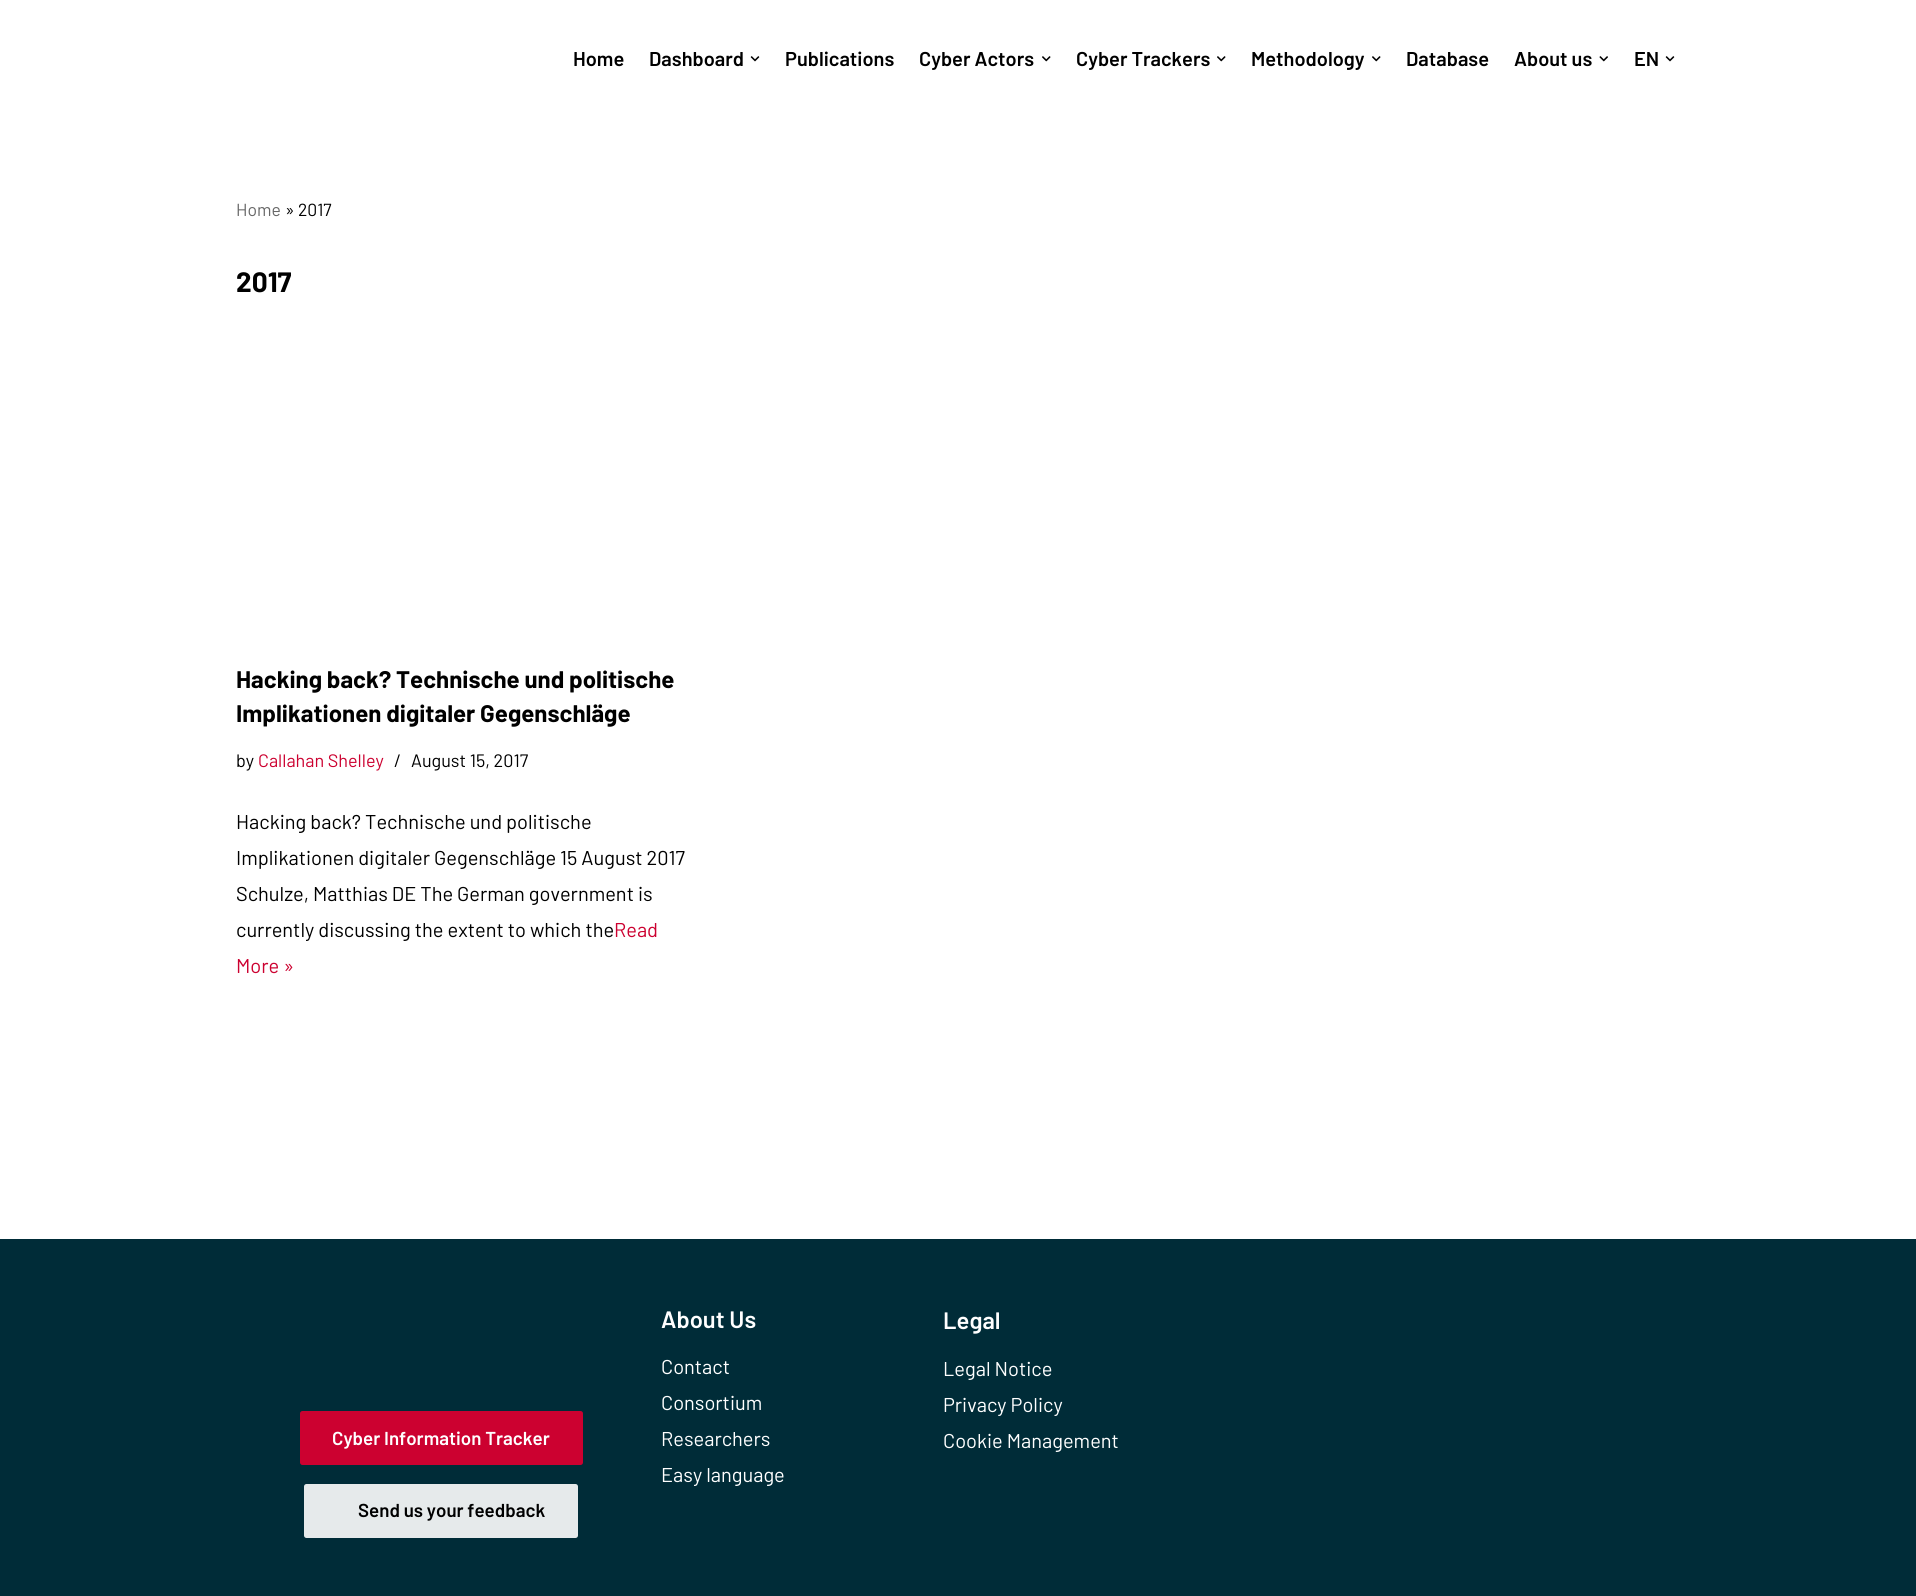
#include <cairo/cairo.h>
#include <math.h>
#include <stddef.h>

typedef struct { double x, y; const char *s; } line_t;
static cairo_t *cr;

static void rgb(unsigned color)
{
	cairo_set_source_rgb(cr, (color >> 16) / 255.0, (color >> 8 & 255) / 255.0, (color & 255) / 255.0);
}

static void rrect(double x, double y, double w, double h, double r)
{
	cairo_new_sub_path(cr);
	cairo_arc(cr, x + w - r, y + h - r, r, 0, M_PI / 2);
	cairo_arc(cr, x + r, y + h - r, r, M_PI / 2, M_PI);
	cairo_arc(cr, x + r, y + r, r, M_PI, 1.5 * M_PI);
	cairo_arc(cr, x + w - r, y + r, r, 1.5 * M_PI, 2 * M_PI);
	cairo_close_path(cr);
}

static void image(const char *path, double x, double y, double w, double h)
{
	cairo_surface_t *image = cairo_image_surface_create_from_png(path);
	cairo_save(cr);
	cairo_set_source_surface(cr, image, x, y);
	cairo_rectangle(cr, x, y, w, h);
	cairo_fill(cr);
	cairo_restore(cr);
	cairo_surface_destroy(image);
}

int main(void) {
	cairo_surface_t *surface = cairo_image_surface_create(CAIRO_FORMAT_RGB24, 1916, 1596);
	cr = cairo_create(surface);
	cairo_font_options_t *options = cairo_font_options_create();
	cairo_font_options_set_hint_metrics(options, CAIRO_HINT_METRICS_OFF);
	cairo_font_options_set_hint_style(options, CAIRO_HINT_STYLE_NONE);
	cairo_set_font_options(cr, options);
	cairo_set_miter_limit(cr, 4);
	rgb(0xffffff);
	cairo_paint(cr);
	image("img/1.png", 750, 56, 10, 6);
	image("img/2.png", 1042, 56, 9, 6);
	image("img/2.png", 1217, 56, 9, 6);
	image("img/2.png", 1372, 56, 9, 6);
	image("img/3.png", 1599, 56, 9, 6);
	image("img/1.png", 1665, 56, 10, 6);
	rgb(0x002c38);
	cairo_rectangle(cr, 0, 1239, 1916, 357);
	cairo_fill(cr);
	rgb(0xcc0130);
	rrect(301.5, 1412.5, 280, 51, 1);
	cairo_fill_preserve(cr);
	cairo_set_line_width(cr, 3);
	cairo_stroke(cr);
	rgb(0xe6eaeb);
	rrect(305.5, 1485.5, 271, 51, 1);
	cairo_fill_preserve(cr);
	cairo_stroke(cr);
	cairo_select_font_face(cr, "Barlow SemiBold", CAIRO_FONT_SLANT_NORMAL, CAIRO_FONT_WEIGHT_NORMAL);
	cairo_set_font_size(cr, 20);
	rgb(0x000000);
	{
		static const line_t items[] = {
			{573, 66, "Home"},
			{649, 66, "Dashboard"},
			{785, 66, "Publications"},
			{919, 66, "Cyber Actors"},
			{1076, 66, "Cyber Trackers"},
			{1251, 66, "Methodology"},
			{1406, 66, "Database"},
			{1514, 66, "About us"},
			{1634, 66, "EN"},
		};
		for (size_t i = 0; i < sizeof items / sizeof *items; i++) {
			cairo_move_to(cr, items[i].x, items[i].y);
			cairo_show_text(cr, items[i].s);
		}
	}
	cairo_select_font_face(cr, "Barlow", CAIRO_FONT_SLANT_NORMAL, CAIRO_FONT_WEIGHT_NORMAL);
	cairo_set_font_size(cr, 17.5);
	rgb(0x676767);
	cairo_move_to(cr, 236, 216);
	cairo_show_text(cr, "Home");
	rgb(0x000000);
	cairo_move_to(cr, 285, 216);
	cairo_show_text(cr, "» 2017");
	cairo_select_font_face(cr, "Barlow", CAIRO_FONT_SLANT_NORMAL, CAIRO_FONT_WEIGHT_BOLD);
	cairo_set_font_size(cr, 28);
	cairo_move_to(cr, 236, 292);
	cairo_show_text(cr, "2017");
	cairo_set_font_size(cr, 24);
	cairo_move_to(cr, 236, 688);
	cairo_show_text(cr, "Hacking back? Technische und politische");
	cairo_move_to(cr, 236, 722);
	cairo_show_text(cr, "Implikationen digitaler Gegenschläge");
	cairo_select_font_face(cr, "Barlow", CAIRO_FONT_SLANT_NORMAL, CAIRO_FONT_WEIGHT_NORMAL);
	cairo_set_font_size(cr, 18);
	cairo_move_to(cr, 236, 767);
	cairo_show_text(cr, "by");
	rgb(0xcc0130);
	cairo_move_to(cr, 258, 767);
	cairo_show_text(cr, "Callahan Shelley");
	rgb(0x000000);
	cairo_move_to(cr, 394, 767);
	cairo_show_text(cr, "/");
	cairo_move_to(cr, 411, 767);
	cairo_show_text(cr, "August 15, 2017");
	cairo_set_font_size(cr, 20);
	{
		static const line_t items[] = {
			{236, 829, "Hacking back? Technische und politische"},
			{236, 865, "Implikationen digitaler Gegenschläge 15 August 2017"},
			{236, 901, "Schulze, Matthias DE The German government is"},
			{236, 937, "currently discussing the extent to which the"},
		};
		for (size_t i = 0; i < sizeof items / sizeof *items; i++) {
			cairo_move_to(cr, items[i].x, items[i].y);
			cairo_show_text(cr, items[i].s);
		}
	}
	rgb(0xcc0130);
	cairo_move_to(cr, 614, 937);
	cairo_show_text(cr, "Read");
	cairo_move_to(cr, 236, 973);
	cairo_show_text(cr, "More »");
	cairo_select_font_face(cr, "Barlow SemiBold", CAIRO_FONT_SLANT_NORMAL, CAIRO_FONT_WEIGHT_NORMAL);
	cairo_set_font_size(cr, 23.75);
	rgb(0xffffff);
	cairo_move_to(cr, 661, 1328);
	cairo_show_text(cr, "About Us");
	cairo_select_font_face(cr, "Barlow", CAIRO_FONT_SLANT_NORMAL, CAIRO_FONT_WEIGHT_NORMAL);
	cairo_set_font_size(cr, 20);
	{
		static const line_t items[] = {
			{661, 1374, "Contact"},
			{661, 1410, "Consortium"},
			{661, 1446, "Researchers"},
			{661, 1482, "Easy language"},
		};
		for (size_t i = 0; i < sizeof items / sizeof *items; i++) {
			cairo_move_to(cr, items[i].x, items[i].y);
			cairo_show_text(cr, items[i].s);
		}
	}
	cairo_select_font_face(cr, "Barlow SemiBold", CAIRO_FONT_SLANT_NORMAL, CAIRO_FONT_WEIGHT_NORMAL);
	cairo_set_font_size(cr, 23.75);
	cairo_move_to(cr, 943, 1329);
	cairo_show_text(cr, "Legal");
	cairo_select_font_face(cr, "Barlow", CAIRO_FONT_SLANT_NORMAL, CAIRO_FONT_WEIGHT_NORMAL);
	cairo_set_font_size(cr, 20);
	{
		static const line_t items[] = {
			{943, 1376, "Legal Notice"},
			{943, 1412, "Privacy Policy"},
			{943, 1448, "Cookie Management"},
		};
		for (size_t i = 0; i < sizeof items / sizeof *items; i++) {
			cairo_move_to(cr, items[i].x, items[i].y);
			cairo_show_text(cr, items[i].s);
		}
	}
	cairo_select_font_face(cr, "Barlow SemiBold", CAIRO_FONT_SLANT_NORMAL, CAIRO_FONT_WEIGHT_NORMAL);
	cairo_set_font_size(cr, 18.75);
	cairo_move_to(cr, 332, 1445);
	cairo_show_text(cr, "Cyber Information Tracker");
	rgb(0x000000);
	cairo_move_to(cr, 358, 1517);
	cairo_show_text(cr, "Send us your feedback");
	cairo_surface_write_to_png(surface, "page.png");
	cairo_font_options_destroy(options);
	cairo_destroy(cr);
	cairo_surface_destroy(surface);
	return 0;
}
